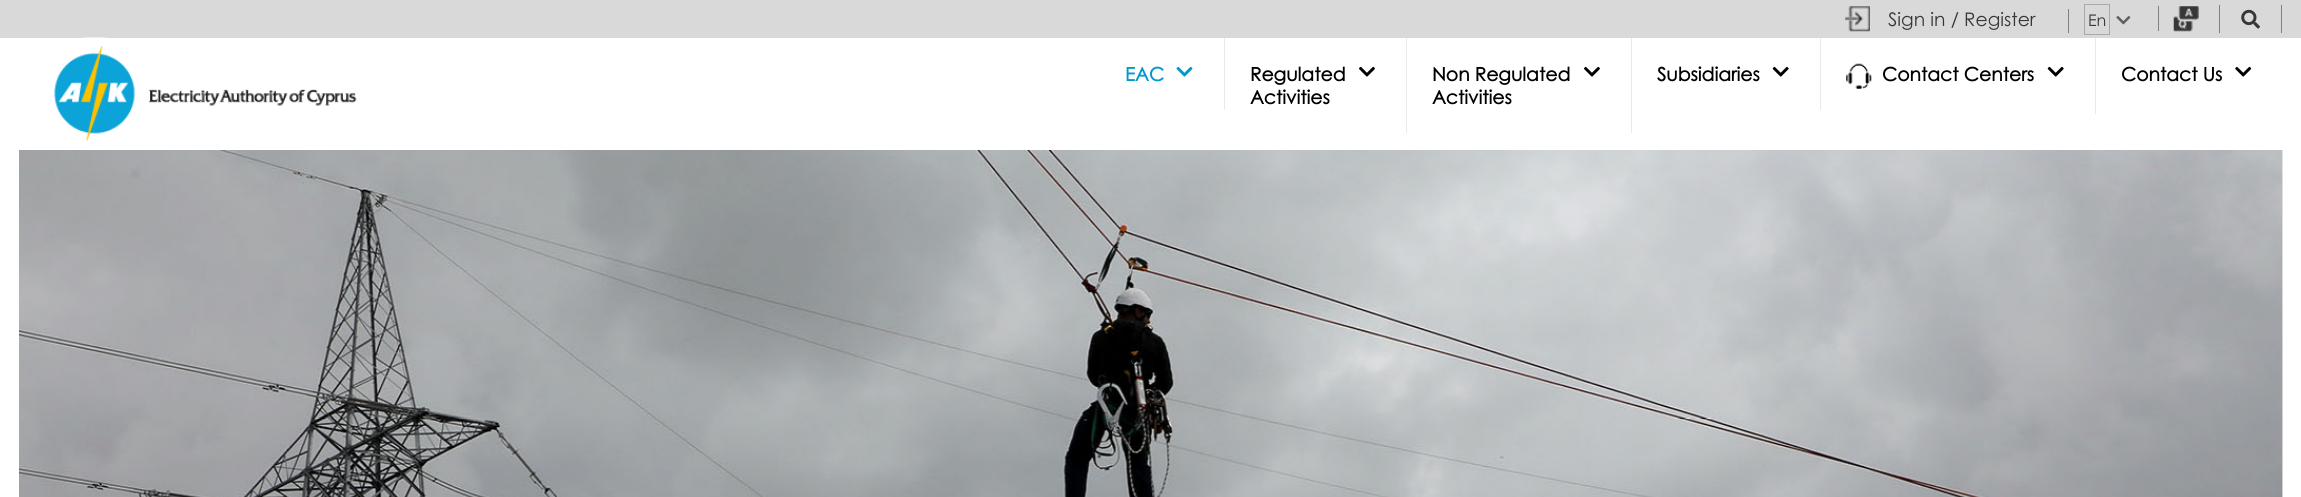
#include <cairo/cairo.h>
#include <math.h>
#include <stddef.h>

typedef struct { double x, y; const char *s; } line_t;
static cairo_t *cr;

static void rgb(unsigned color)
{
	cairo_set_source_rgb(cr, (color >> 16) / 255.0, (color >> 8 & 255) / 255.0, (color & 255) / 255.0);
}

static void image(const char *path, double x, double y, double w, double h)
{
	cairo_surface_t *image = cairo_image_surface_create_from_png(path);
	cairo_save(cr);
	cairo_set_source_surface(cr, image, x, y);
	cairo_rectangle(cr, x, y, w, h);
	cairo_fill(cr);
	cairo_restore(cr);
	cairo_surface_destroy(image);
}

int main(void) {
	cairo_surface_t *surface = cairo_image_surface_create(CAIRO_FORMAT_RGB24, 2301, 497);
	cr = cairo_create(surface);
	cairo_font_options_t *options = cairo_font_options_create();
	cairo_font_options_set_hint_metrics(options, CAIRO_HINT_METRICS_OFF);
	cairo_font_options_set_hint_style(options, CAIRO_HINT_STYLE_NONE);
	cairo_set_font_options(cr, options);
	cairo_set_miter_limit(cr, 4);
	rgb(0xffffff);
	cairo_paint(cr);
	rgb(0xd9d9d9);
	cairo_rectangle(cr, 0, 0, 2301, 38);
	cairo_fill(cr);
	image("img/1.png", 1845, 6, 25, 26);
	rgb(0x808080);
	cairo_rectangle(cr, 2068, 9, 1, 24);
	cairo_fill(cr);
	cairo_rectangle(cr, 2084.5, 4.5, 25, 30);
	rgb(0xa9a9a9);
	cairo_set_line_width(cr, 1);
	cairo_stroke(cr);
	image("img/2.png", 2116, 16, 15, 9);
	rgb(0x808080);
	cairo_rectangle(cr, 2158, 6, 1, 25);
	cairo_fill(cr);
	image("img/3.png", 2173, 6, 26, 26);
	cairo_rectangle(cr, 2219, 5, 1, 28);
	cairo_fill(cr);
	cairo_rectangle(cr, 2281, 5, 1, 28);
	cairo_fill(cr);
	image("img/4.png", 2241, 9, 19, 20);
	image("img/5.png", 54, 37, 303, 105);
	rgb(0xeaeaea);
	cairo_rectangle(cr, 1224, 38, 1, 72);
	cairo_fill(cr);
	image("img/6.png", 1176, 66, 17, 11);
	cairo_rectangle(cr, 1406, 38, 1, 95);
	cairo_fill(cr);
	image("img/7.png", 1359, 66, 16, 11);
	cairo_rectangle(cr, 1631, 38, 1, 95);
	cairo_fill(cr);
	image("img/7.png", 1584, 66, 16, 11);
	cairo_rectangle(cr, 1820, 38, 1, 72);
	cairo_fill(cr);
	image("img/8.png", 1772, 66, 17, 11);
	cairo_rectangle(cr, 2095, 38, 1, 76);
	cairo_fill(cr);
	image("img/9.png", 1846, 63, 26, 26);
	image("img/8.png", 2047, 66, 17, 11);
	image("img/10.png", 2235, 66, 17, 11);
	image("img/11.png", 19, 150, 2264, 347);
	cairo_select_font_face(cr, "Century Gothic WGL", CAIRO_FONT_SLANT_NORMAL, CAIRO_FONT_WEIGHT_NORMAL);
	cairo_set_font_size(cr, 18.75);
	rgb(0x373737);
	cairo_move_to(cr, 1888, 26);
	cairo_show_text(cr, "Sign in / Register");
	cairo_set_font_size(cr, 16);
	cairo_move_to(cr, 2088, 26);
	cairo_show_text(cr, "En");
	cairo_select_font_face(cr, "Century Gothic WGL", CAIRO_FONT_SLANT_NORMAL, CAIRO_FONT_WEIGHT_BOLD);
	cairo_set_font_size(cr, 18.75);
	rgb(0x0099cb);
	cairo_move_to(cr, 1125, 81);
	cairo_show_text(cr, "EAC");
	rgb(0x000000);
	{
		static const line_t items[] = {
			{1250, 81, "Regulated"},
			{1250, 104, "Activities"},
			{1432, 81, "Non Regulated"},
			{1432, 104, "Activities"},
			{1657, 81, "Subsidiaries"},
			{1882, 81, "Contact Centers"},
			{2121, 81, "Contact Us"},
		};
		for (size_t i = 0; i < sizeof items / sizeof *items; i++) {
			cairo_move_to(cr, items[i].x, items[i].y);
			cairo_show_text(cr, items[i].s);
		}
	}
	cairo_surface_write_to_png(surface, "page.png");
	cairo_font_options_destroy(options);
	cairo_destroy(cr);
	cairo_surface_destroy(surface);
	return 0;
}
